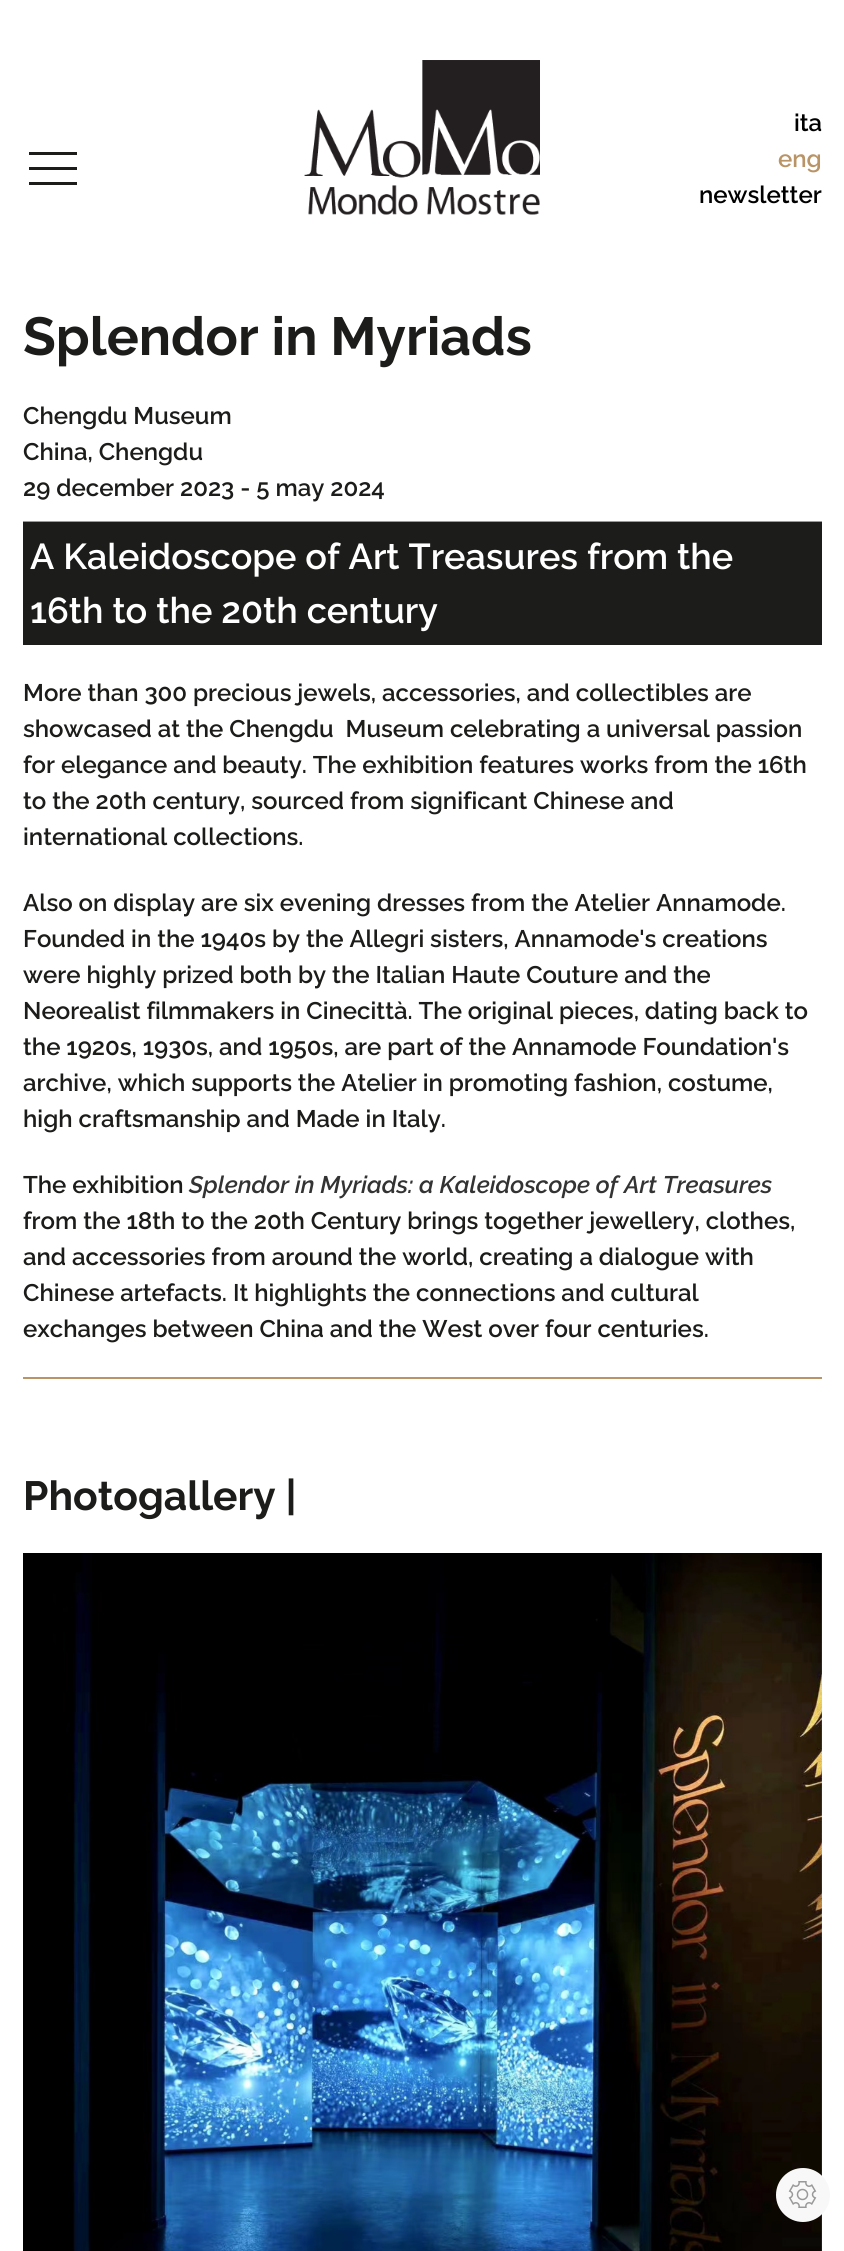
#include <cairo/cairo.h>
#include <math.h>
#include <stddef.h>

typedef struct { double x, y; const char *s; } line_t;
typedef struct { double x, y, w, h; unsigned color; } box_t;
static cairo_t *cr;

static void rgb(unsigned color)
{
	cairo_set_source_rgb(cr, (color >> 16) / 255.0, (color >> 8 & 255) / 255.0, (color & 255) / 255.0);
}

static void image(const char *path, double x, double y, double w, double h)
{
	cairo_surface_t *image = cairo_image_surface_create_from_png(path);
	cairo_save(cr);
	cairo_set_source_surface(cr, image, x, y);
	cairo_rectangle(cr, x, y, w, h);
	cairo_fill(cr);
	cairo_restore(cr);
	cairo_surface_destroy(image);
}

int main(void) {
	cairo_surface_t *surface = cairo_image_surface_create(CAIRO_FORMAT_RGB24, 844, 2251);
	cr = cairo_create(surface);
	cairo_font_options_t *options = cairo_font_options_create();
	cairo_font_options_set_hint_metrics(options, CAIRO_HINT_METRICS_OFF);
	cairo_font_options_set_hint_style(options, CAIRO_HINT_STYLE_NONE);
	cairo_set_font_options(cr, options);
	cairo_set_miter_limit(cr, 4);
	rgb(0xffffff);
	cairo_paint(cr);
	{
		static const box_t items[] = {
			{29, 152, 48, 3, 0x1c1d1a},
			{29, 167, 48, 3, 0x1c1d1a},
			{29, 182, 48, 3, 0x1c1d1a},
		};
		for (size_t i = 0; i < sizeof items / sizeof *items; i++) {
			rgb(items[i].color);
			cairo_rectangle(cr, items[i].x, items[i].y, items[i].w, items[i].h);
			cairo_fill(cr);
		}
	}
	image("img/1.png", 304, 60, 236, 155);
	{
		static const box_t items[] = {
			{23, 521, 799, 1, 0xb99466},
			{23, 522, 799, 123, 0x1c1d1a},
			{23, 1377, 799, 2, 0xb99466},
		};
		for (size_t i = 0; i < sizeof items / sizeof *items; i++) {
			rgb(items[i].color);
			cairo_rectangle(cr, items[i].x, items[i].y, items[i].w, items[i].h);
			cairo_fill(cr);
		}
	}
	image("img/2.png", 23, 1553, 799, 698);
	rgb(0xf8f8f8);
	cairo_arc(cr, 803, 2195, 27, 0, 2 * M_PI);
	cairo_fill(cr);
	image("img/3.png", 788, 2181, 29, 27);
	cairo_select_font_face(cr, "Raleway SemiBold", CAIRO_FONT_SLANT_NORMAL, CAIRO_FONT_WEIGHT_NORMAL);
	cairo_set_font_size(cr, 24);
	rgb(0x000000);
	cairo_move_to(cr, 794, 131);
	cairo_show_text(cr, "ita");
	rgb(0xb99466);
	cairo_move_to(cr, 778, 167);
	cairo_show_text(cr, "eng");
	rgb(0x000000);
	cairo_move_to(cr, 699, 203);
	cairo_show_text(cr, "newsletter");
	cairo_select_font_face(cr, "Raleway", CAIRO_FONT_SLANT_NORMAL, CAIRO_FONT_WEIGHT_BOLD);
	cairo_set_font_size(cr, 53.5);
	rgb(0x1c1d1a);
	cairo_move_to(cr, 23, 355);
	cairo_show_text(cr, "Splendor in Myriads");
	cairo_select_font_face(cr, "Raleway SemiBold", CAIRO_FONT_SLANT_NORMAL, CAIRO_FONT_WEIGHT_NORMAL);
	cairo_set_font_size(cr, 24);
	{
		static const line_t items[] = {
			{23, 424, "Chengdu Museum"},
			{23, 460, "China, Chengdu"},
			{23, 496, "29 december 2023 - 5 may 2024"},
		};
		for (size_t i = 0; i < sizeof items / sizeof *items; i++) {
			cairo_move_to(cr, items[i].x, items[i].y);
			cairo_show_text(cr, items[i].s);
		}
	}
	cairo_set_font_size(cr, 36);
	rgb(0xffffff);
	cairo_move_to(cr, 30, 569);
	cairo_show_text(cr, "A Kaleidoscope of Art Treasures from the");
	cairo_move_to(cr, 30, 623);
	cairo_show_text(cr, "16th to the 20th century");
	cairo_set_font_size(cr, 24);
	rgb(0x1c1d1a);
	{
		static const line_t items[] = {
			{23, 701, "More than 300 precious jewels, accessories, and collectibles are"},
			{23, 737, "showcased at the Chengdu  Museum celebrating a universal passion"},
			{23, 773, "for elegance and beauty. The exhibition features works from the 16th"},
			{23, 809, "to the 20th century, sourced from significant Chinese and"},
			{23, 845, "international collections."},
			{23, 911, "Also on display are six evening dresses from the Atelier Annamode."},
			{23, 947, "Founded in the 1940s by the Allegri sisters, Annamode's creations"},
			{23, 983, "were highly prized both by the Italian Haute Couture and the"},
			{23, 1019, "Neorealist filmmakers in Cinecittà. The original pieces, dating back to"},
			{23, 1055, "the 1920s, 1930s, and 1950s, are part of the Annamode Foundation's"},
			{23, 1091, "archive, which supports the Atelier in promoting fashion, costume,"},
			{23, 1127, "high craftsmanship and Made in Italy."},
			{23, 1193, "The exhibition"},
		};
		for (size_t i = 0; i < sizeof items / sizeof *items; i++) {
			cairo_move_to(cr, items[i].x, items[i].y);
			cairo_show_text(cr, items[i].s);
		}
	}
	cairo_select_font_face(cr, "Raleway SemiBold", CAIRO_FONT_SLANT_ITALIC, CAIRO_FONT_WEIGHT_NORMAL);
	rgb(0x333333);
	cairo_move_to(cr, 189, 1193);
	cairo_show_text(cr, "Splendor in Myriads: a Kaleidoscope of Art Treasures");
	cairo_select_font_face(cr, "Raleway SemiBold", CAIRO_FONT_SLANT_NORMAL, CAIRO_FONT_WEIGHT_NORMAL);
	rgb(0x1c1d1a);
	{
		static const line_t items[] = {
			{23, 1229, "from the 18th to the 20th Century brings together jewellery, clothes,"},
			{23, 1265, "and accessories from around the world, creating a dialogue with"},
			{23, 1301, "Chinese artefacts. It highlights the connections and cultural"},
			{23, 1337, "exchanges between China and the West over four centuries."},
		};
		for (size_t i = 0; i < sizeof items / sizeof *items; i++) {
			cairo_move_to(cr, items[i].x, items[i].y);
			cairo_show_text(cr, items[i].s);
		}
	}
	cairo_select_font_face(cr, "Raleway", CAIRO_FONT_SLANT_NORMAL, CAIRO_FONT_WEIGHT_BOLD);
	cairo_set_font_size(cr, 40.75);
	cairo_move_to(cr, 23, 1510);
	cairo_show_text(cr, "Photogallery |");
	cairo_surface_write_to_png(surface, "page.png");
	cairo_font_options_destroy(options);
	cairo_destroy(cr);
	cairo_surface_destroy(surface);
	return 0;
}
